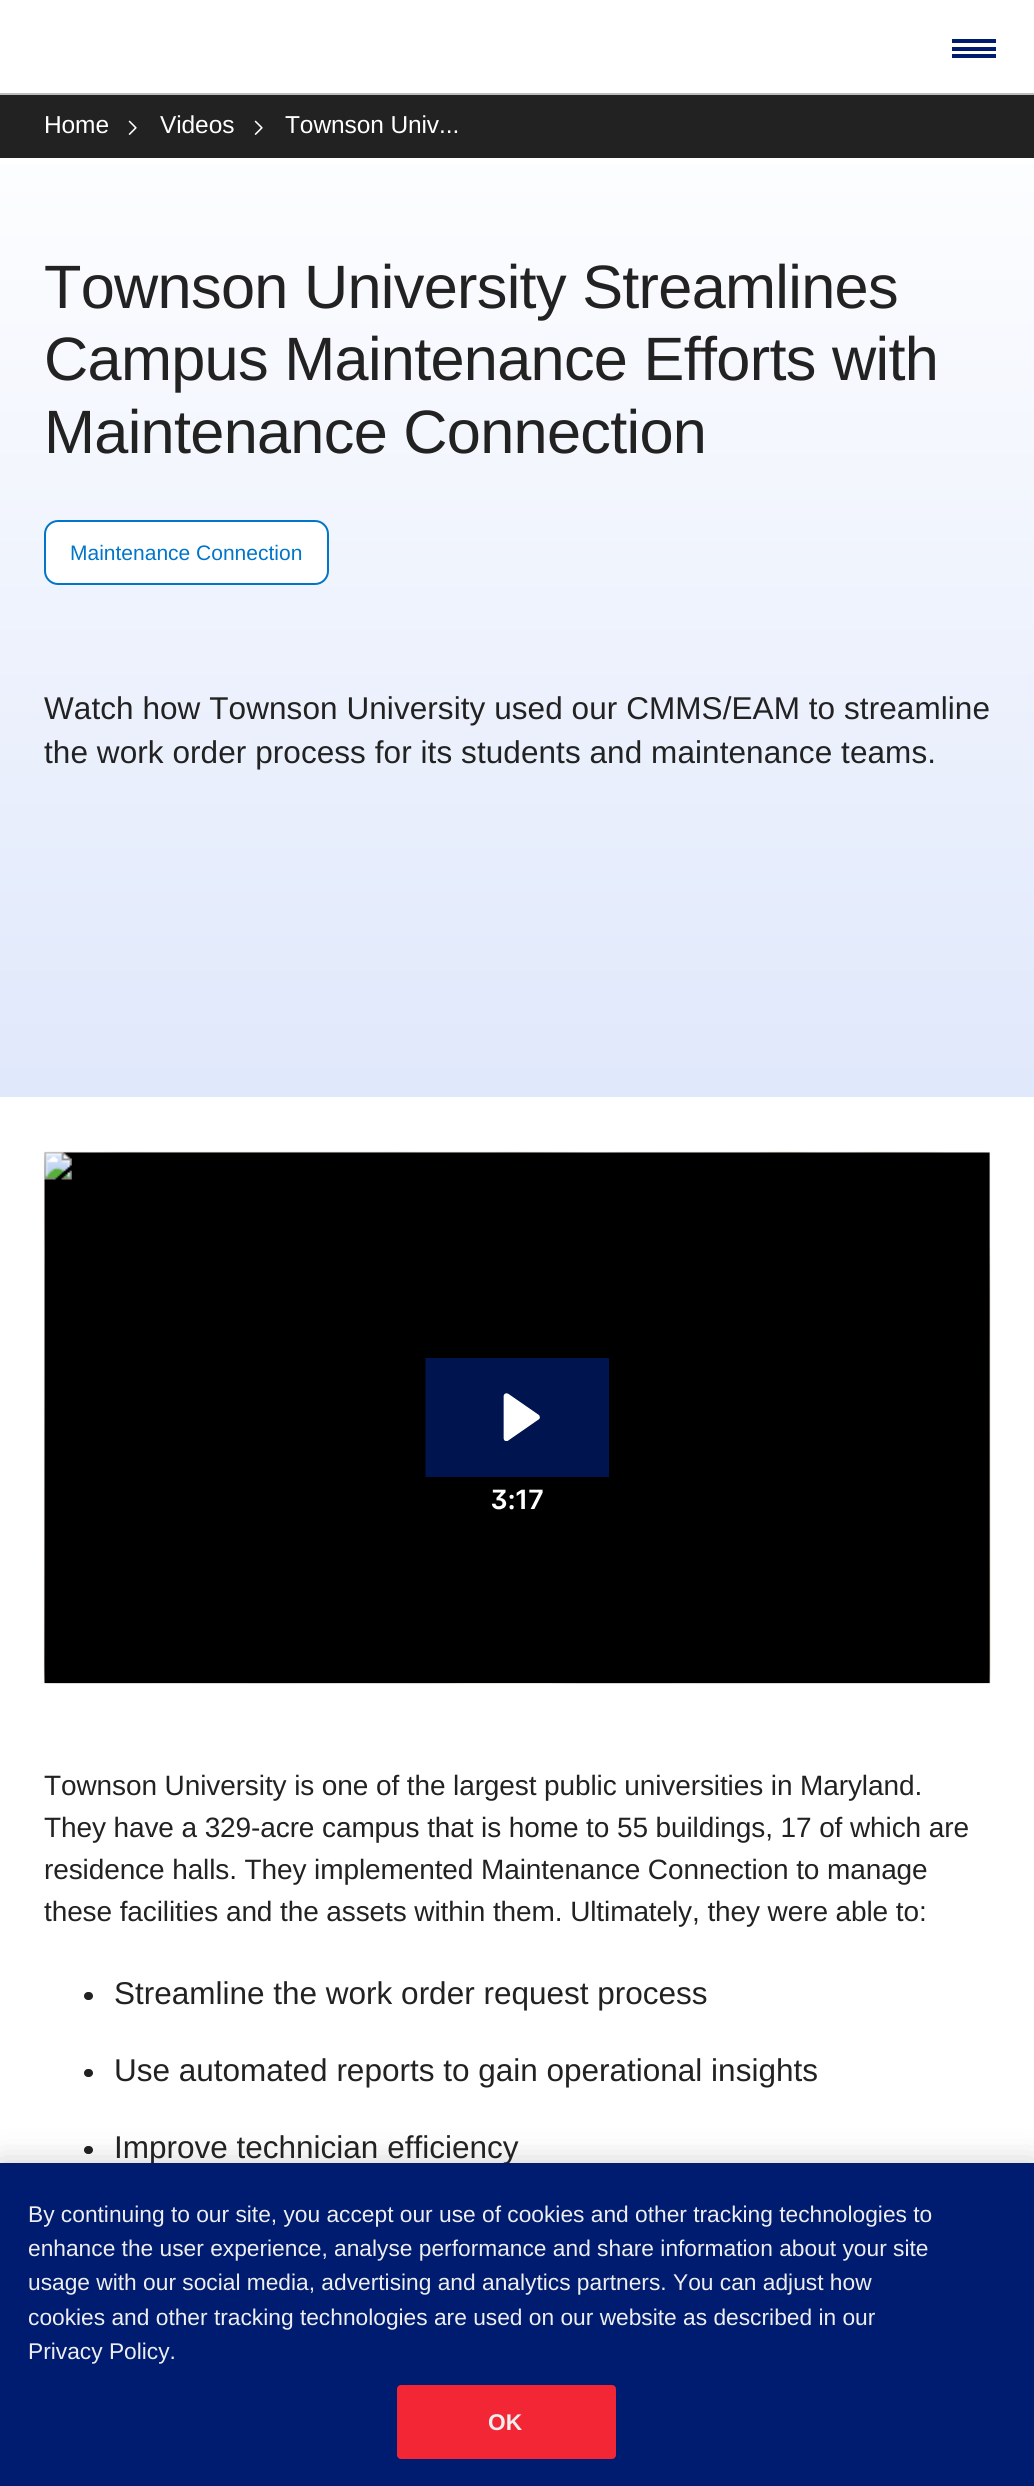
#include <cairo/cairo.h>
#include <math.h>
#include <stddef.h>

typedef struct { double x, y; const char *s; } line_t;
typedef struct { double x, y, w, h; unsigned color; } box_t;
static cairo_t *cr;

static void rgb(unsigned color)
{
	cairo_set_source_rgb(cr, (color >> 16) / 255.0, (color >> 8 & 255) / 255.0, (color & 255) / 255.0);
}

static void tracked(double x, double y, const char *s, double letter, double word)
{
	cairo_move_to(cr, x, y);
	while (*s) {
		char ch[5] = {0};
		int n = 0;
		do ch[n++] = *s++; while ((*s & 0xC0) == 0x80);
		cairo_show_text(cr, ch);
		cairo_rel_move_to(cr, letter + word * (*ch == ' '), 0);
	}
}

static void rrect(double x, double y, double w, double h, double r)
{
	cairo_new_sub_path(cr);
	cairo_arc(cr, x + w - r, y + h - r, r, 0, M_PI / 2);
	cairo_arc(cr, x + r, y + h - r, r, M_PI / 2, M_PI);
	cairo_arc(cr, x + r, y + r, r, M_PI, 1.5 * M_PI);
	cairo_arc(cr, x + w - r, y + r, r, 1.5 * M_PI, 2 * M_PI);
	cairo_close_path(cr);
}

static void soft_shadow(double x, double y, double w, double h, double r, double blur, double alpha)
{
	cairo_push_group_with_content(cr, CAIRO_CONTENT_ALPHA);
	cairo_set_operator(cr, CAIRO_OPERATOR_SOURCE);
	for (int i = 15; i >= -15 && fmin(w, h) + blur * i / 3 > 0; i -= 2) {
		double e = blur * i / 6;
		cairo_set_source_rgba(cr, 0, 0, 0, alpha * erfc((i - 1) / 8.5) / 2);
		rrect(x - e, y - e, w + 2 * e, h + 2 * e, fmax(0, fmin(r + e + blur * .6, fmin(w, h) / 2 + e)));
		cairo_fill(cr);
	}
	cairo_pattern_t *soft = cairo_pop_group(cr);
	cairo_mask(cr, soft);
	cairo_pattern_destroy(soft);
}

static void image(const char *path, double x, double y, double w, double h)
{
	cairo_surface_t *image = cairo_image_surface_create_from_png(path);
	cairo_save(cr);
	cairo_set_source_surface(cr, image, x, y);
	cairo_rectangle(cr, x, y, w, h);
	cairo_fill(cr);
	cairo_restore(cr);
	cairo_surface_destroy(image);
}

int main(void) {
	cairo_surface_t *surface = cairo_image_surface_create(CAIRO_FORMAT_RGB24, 1034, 2486);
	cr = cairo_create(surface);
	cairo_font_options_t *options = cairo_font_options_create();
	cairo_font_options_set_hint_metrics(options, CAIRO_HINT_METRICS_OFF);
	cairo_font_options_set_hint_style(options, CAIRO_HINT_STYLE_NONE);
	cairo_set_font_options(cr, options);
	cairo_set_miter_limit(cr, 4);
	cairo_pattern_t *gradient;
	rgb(0xffffff);
	cairo_paint(cr);
	{
		static const box_t items[] = {
			{0, 93, 1034, 2, 0xbdbdbd},
			{952, 54, 44, 4, 0x001c71},
			{952, 39, 44, 4, 0x001c71},
			{952, 47, 44, 4, 0x001c71},
			{0, 95, 1034, 63, 0x222222},
		};
		for (size_t i = 0; i < sizeof items / sizeof *items; i++) {
			rgb(items[i].color);
			cairo_rectangle(cr, items[i].x, items[i].y, items[i].w, items[i].h);
			cairo_fill(cr);
		}
	}
	image("img/1.png", 128, 120, 9, 15);
	image("img/1.png", 254, 120, 9, 15);
	gradient = cairo_pattern_create_linear(517, 83, 517, 1097);
	cairo_pattern_add_color_stop_rgba(gradient, 0, 1, 1, 1, 1);
	cairo_pattern_add_color_stop_rgba(gradient, 0.99, 0.878, 0.91, 0.984, 1);
	cairo_set_source(cr, gradient);
	cairo_pattern_destroy(gradient);
	cairo_rectangle(cr, 0, 164, 1034, 933);
	cairo_fill(cr);
	rgb(0xffffff);
	rrect(45, 521, 283, 63, 13);
	cairo_fill_preserve(cr);
	rgb(0x0075c9);
	cairo_stroke(cr);
	image("img/2.png", 43, 1151, 948, 533);
	rgb(0x222222);
	rrect(84, 1992, 9, 8, 4);
	cairo_fill(cr);
	rrect(84, 2069, 9, 8, 4);
	cairo_fill(cr);
	rrect(84, 2146, 9, 8, 4);
	cairo_fill(cr);
	rgb(0x000000);
	soft_shadow(0, 2163, 1034, 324, 0, 16, 0.2);
	cairo_select_font_face(cr, "Liberation Sans", CAIRO_FONT_SLANT_NORMAL, CAIRO_FONT_WEIGHT_NORMAL);
	cairo_set_font_size(cr, 24.5);
	rgb(0xffffff);
	{
		static const line_t items[] = {
			{44, 133, "Home"},
			{160, 133, "Videos"},
			{285, 133, "Townson Univ..."},
		};
		for (size_t i = 0; i < sizeof items / sizeof *items; i++) {
			tracked(items[i].x, items[i].y, items[i].s, -0.1, 0);
		}
	}
	cairo_set_font_size(cr, 61.25);
	rgb(0x222222);
	{
		static const line_t items[] = {
			{44, 308, "Townson University Streamlines"},
			{44, 380, "Campus Maintenance Efforts with"},
			{44, 453, "Maintenance Connection"},
		};
		for (size_t i = 0; i < sizeof items / sizeof *items; i++) {
			tracked(items[i].x, items[i].y, items[i].s, -0.7, 0);
		}
	}
	cairo_set_font_size(cr, 21);
	rgb(0x0075c9);
	cairo_move_to(cr, 70, 560);
	cairo_show_text(cr, "Maintenance Connection");
	cairo_set_font_size(cr, 31.5);
	rgb(0x222222);
	tracked(44, 719, "Watch how Townson University used our CMMS/EAM to streamline", 0.07, 0);
	tracked(44, 763, "the work order process for its students and maintenance teams.", 0.07, 0);
	cairo_set_font_size(cr, 28);
	{
		static const line_t items[] = {
			{44, 1795, "Townson University is one of the largest public universities in Maryland."},
			{44, 1837, "They have a 329-acre campus that is home to 55 buildings, 17 of which are"},
			{44, 1879, "residence halls. They implemented Maintenance Connection to manage"},
			{44, 1921, "these facilities and the assets within them. Ultimately, they were able to:"},
		};
		for (size_t i = 0; i < sizeof items / sizeof *items; i++) {
			tracked(items[i].x, items[i].y, items[i].s, -0.1, 0);
		}
	}
	cairo_set_font_size(cr, 31.5);
	{
		static const line_t items[] = {
			{114, 2004, "Streamline the work order request process"},
			{114, 2081, "Use automated reports to gain operational insights"},
			{114, 2158, "Improve technician efficiency"},
		};
		for (size_t i = 0; i < sizeof items / sizeof *items; i++) {
			cairo_move_to(cr, items[i].x, items[i].y);
			cairo_show_text(cr, items[i].s);
		}
	}
	rgb(0x001c71);
	cairo_rectangle(cr, 0, 2163, 1034, 323);
	cairo_fill(cr);
	cairo_set_font_size(cr, 22.75);
	rgb(0xeeeeee);
	{
		static const line_t items[] = {
			{28, 2222, "By continuing to our site, you accept our use of cookies and other tracking technologies to"},
			{28, 2256, "enhance the user experience, analyse performance and share information about your site"},
			{28, 2290, "usage with our social media, advertising and analytics partners."},
			{673, 2290, "You can adjust how"},
			{28, 2325, "cookies and other tracking technologies are used on our website as described in our"},
			{28, 2359, "Privacy Policy."},
		};
		for (size_t i = 0; i < sizeof items / sizeof *items; i++) {
			cairo_move_to(cr, items[i].x, items[i].y);
			cairo_show_text(cr, items[i].s);
		}
	}
	rgb(0xf22635);
	rrect(398, 2386, 217, 72, 3);
	cairo_fill_preserve(cr);
	cairo_stroke(cr);
	cairo_select_font_face(cr, "Liberation Sans", CAIRO_FONT_SLANT_NORMAL, CAIRO_FONT_WEIGHT_BOLD);
	rgb(0xeeeeee);
	cairo_move_to(cr, 488, 2430);
	cairo_show_text(cr, "OK");
	cairo_surface_write_to_png(surface, "page.png");
	cairo_font_options_destroy(options);
	cairo_destroy(cr);
	cairo_surface_destroy(surface);
	return 0;
}
